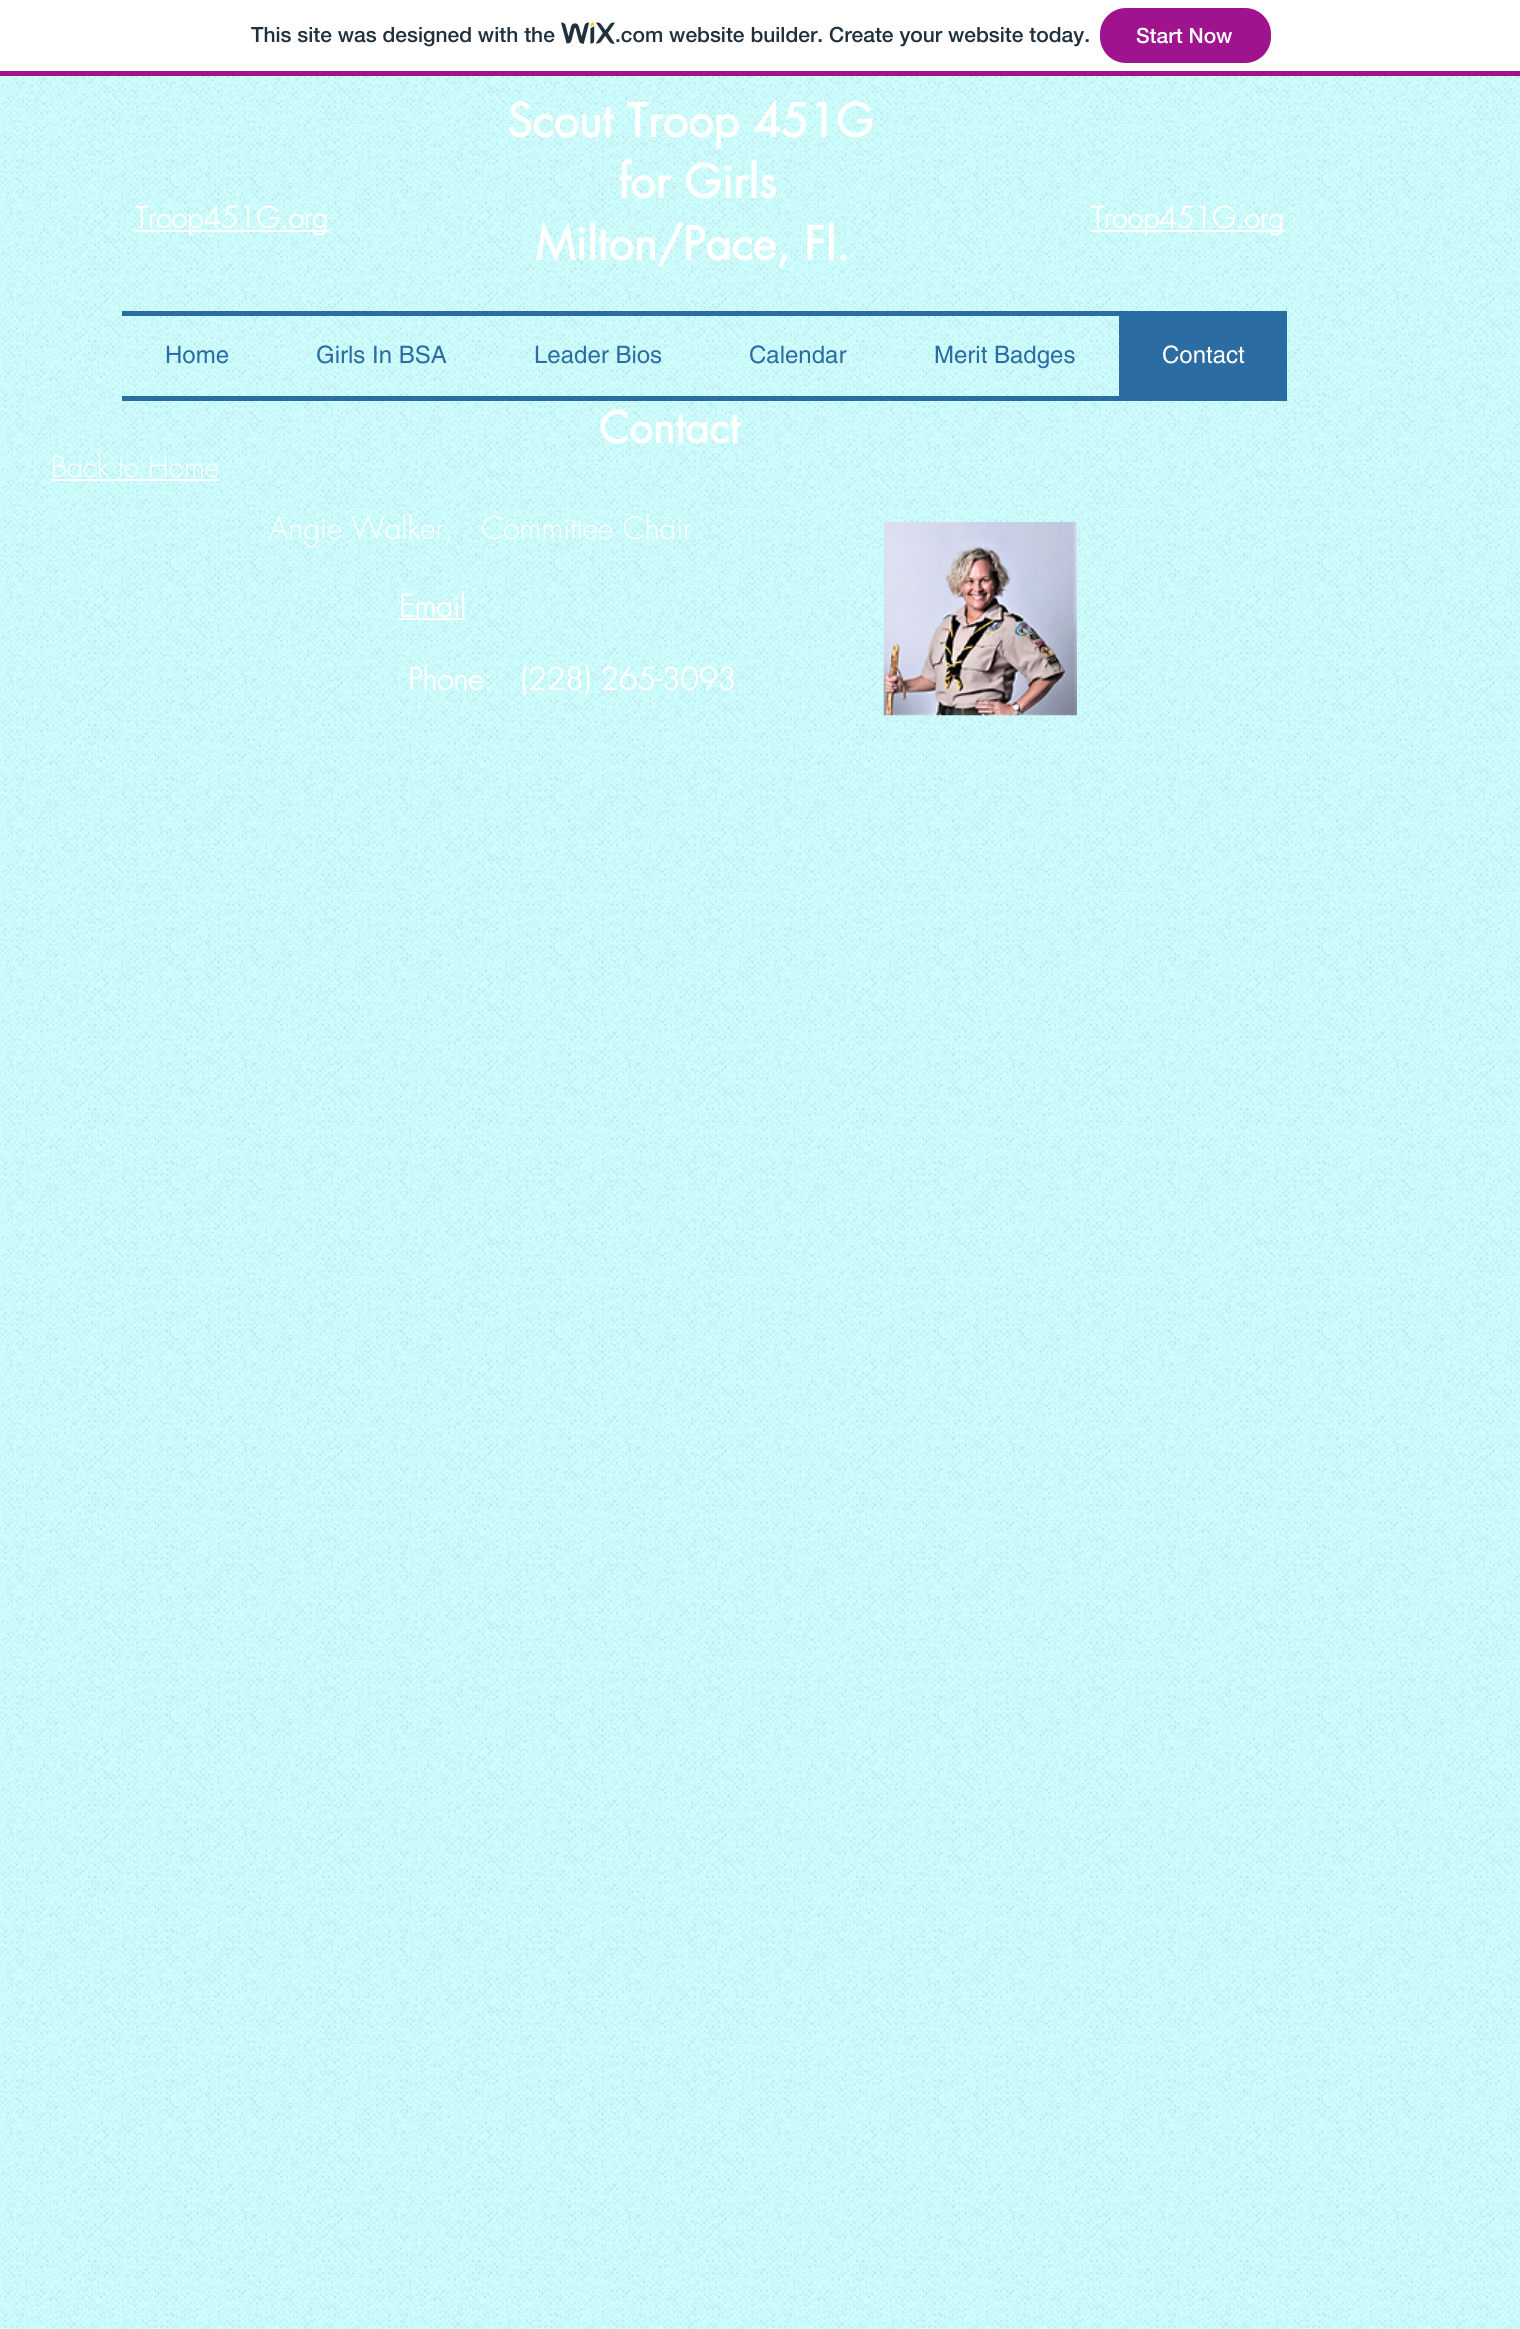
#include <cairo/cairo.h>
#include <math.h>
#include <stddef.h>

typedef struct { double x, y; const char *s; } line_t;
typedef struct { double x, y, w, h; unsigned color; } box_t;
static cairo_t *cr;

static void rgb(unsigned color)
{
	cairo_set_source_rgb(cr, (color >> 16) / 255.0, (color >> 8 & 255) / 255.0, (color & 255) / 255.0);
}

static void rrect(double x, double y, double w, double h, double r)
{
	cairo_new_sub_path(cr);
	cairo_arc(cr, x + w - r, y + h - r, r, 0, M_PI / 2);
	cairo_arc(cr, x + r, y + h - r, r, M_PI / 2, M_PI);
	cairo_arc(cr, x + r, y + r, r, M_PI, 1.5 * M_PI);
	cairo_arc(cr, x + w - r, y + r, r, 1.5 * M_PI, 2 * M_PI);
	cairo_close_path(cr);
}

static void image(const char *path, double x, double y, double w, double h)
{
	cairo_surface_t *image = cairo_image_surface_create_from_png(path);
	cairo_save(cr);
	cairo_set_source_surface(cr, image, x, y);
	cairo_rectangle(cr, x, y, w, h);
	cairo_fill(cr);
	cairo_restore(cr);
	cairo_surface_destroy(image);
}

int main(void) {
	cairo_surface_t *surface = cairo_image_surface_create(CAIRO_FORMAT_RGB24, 1520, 2329);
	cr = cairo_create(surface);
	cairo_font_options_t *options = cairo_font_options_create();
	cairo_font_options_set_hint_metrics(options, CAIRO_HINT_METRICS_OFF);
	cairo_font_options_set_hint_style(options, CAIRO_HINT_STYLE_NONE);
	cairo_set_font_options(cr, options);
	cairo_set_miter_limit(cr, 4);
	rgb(0xffffff);
	cairo_paint(cr);
	rgb(0xa0138e);
	cairo_rectangle(cr, 0, 71, 1520, 5);
	cairo_fill(cr);
	image("img/1.png", 561, 22, 54, 22);
	rrect(1101, 9, 169, 53, 25);
	cairo_fill_preserve(cr);
	cairo_stroke(cr);
	rgb(0xcfffff);
	cairo_rectangle(cr, 0, 76, 1520, 2253);
	cairo_fill(cr);
	image("img/2.png", 0, 76, 1520, 2253);
	{
		static const box_t items[] = {
			{135, 230, 194, 2, 0xffffff},
			{1091, 230, 193, 2, 0xffffff},
			{122, 311, 1165, 5, 0x2b6ca3},
			{122, 396, 1165, 5, 0x2b6ca3},
			{1119, 316, 168, 80, 0x2b6ca3},
			{51, 479, 168, 2, 0xffffff},
			{399, 618, 66, 2, 0xffffff},
		};
		for (size_t i = 0; i < sizeof items / sizeof *items; i++) {
			rgb(items[i].color);
			cairo_rectangle(cr, items[i].x, items[i].y, items[i].w, items[i].h);
			cairo_fill(cr);
		}
	}
	image("img/3.png", 883, 522, 194, 194);
	cairo_select_font_face(cr, "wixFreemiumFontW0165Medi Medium", CAIRO_FONT_SLANT_NORMAL, CAIRO_FONT_WEIGHT_NORMAL);
	cairo_set_font_size(cr, 21);
	rgb(0x20303c);
	cairo_move_to(cr, 251, 42);
	cairo_show_text(cr, "This site was designed with the");
	cairo_move_to(cr, 615, 42);
	cairo_show_text(cr, ".com website builder. Create your website today.");
	rgb(0xffffff);
	cairo_move_to(cr, 1136, 43);
	cairo_show_text(cr, "Start Now");
	cairo_select_font_face(cr, "futura", CAIRO_FONT_SLANT_NORMAL, CAIRO_FONT_WEIGHT_BOLD);
	cairo_set_font_size(cr, 28.5);
	cairo_move_to(cr, 135, 228);
	cairo_show_text(cr, "Troop451G.org");
	cairo_select_font_face(cr, "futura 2", CAIRO_FONT_SLANT_NORMAL, CAIRO_FONT_WEIGHT_BOLD);
	cairo_set_font_size(cr, 45);
	{
		static const line_t items[] = {
			{507, 137, "Scout Troop 451G"},
			{618, 198, "for Girls"},
			{535, 260, "Milton/Pace, Fl."},
		};
		for (size_t i = 0; i < sizeof items / sizeof *items; i++) {
			cairo_move_to(cr, items[i].x, items[i].y);
			cairo_show_text(cr, items[i].s);
		}
	}
	cairo_select_font_face(cr, "futura", CAIRO_FONT_SLANT_NORMAL, CAIRO_FONT_WEIGHT_BOLD);
	cairo_set_font_size(cr, 28.5);
	cairo_move_to(cr, 1091, 228);
	cairo_show_text(cr, "Troop451G.org");
	cairo_select_font_face(cr, "helvetica", CAIRO_FONT_SLANT_NORMAL, CAIRO_FONT_WEIGHT_NORMAL);
	cairo_set_font_size(cr, 24);
	rgb(0x2b6ca3);
	{
		static const line_t items[] = {
			{165, 363, "Home"},
			{316, 363, "Girls In BSA"},
			{534, 363, "Leader Bios"},
			{749, 363, "Calendar"},
			{934, 363, "Merit Badges"},
		};
		for (size_t i = 0; i < sizeof items / sizeof *items; i++) {
			cairo_move_to(cr, items[i].x, items[i].y);
			cairo_show_text(cr, items[i].s);
		}
	}
	rgb(0xffffff);
	cairo_move_to(cr, 1162, 363);
	cairo_show_text(cr, "Contact");
	cairo_select_font_face(cr, "futura 2", CAIRO_FONT_SLANT_NORMAL, CAIRO_FONT_WEIGHT_BOLD);
	cairo_set_font_size(cr, 42);
	cairo_move_to(cr, 599, 443);
	cairo_show_text(cr, "Contact");
	cairo_select_font_face(cr, "futura Light", CAIRO_FONT_SLANT_NORMAL, CAIRO_FONT_WEIGHT_NORMAL);
	cairo_set_font_size(cr, 28.5);
	cairo_move_to(cr, 51, 477);
	cairo_show_text(cr, "Back to Home");
	cairo_set_font_size(cr, 30);
	cairo_move_to(cr, 269, 539);
	cairo_show_text(cr, "Angie Walker,   Committee Chair.");
	cairo_select_font_face(cr, "futura", CAIRO_FONT_SLANT_NORMAL, CAIRO_FONT_WEIGHT_BOLD);
	cairo_move_to(cr, 399, 617);
	cairo_show_text(cr, "Email");
	cairo_move_to(cr, 408, 690);
	cairo_show_text(cr, "Phone:   (228) 265-3093");
	cairo_surface_write_to_png(surface, "page.png");
	cairo_font_options_destroy(options);
	cairo_destroy(cr);
	cairo_surface_destroy(surface);
	return 0;
}
